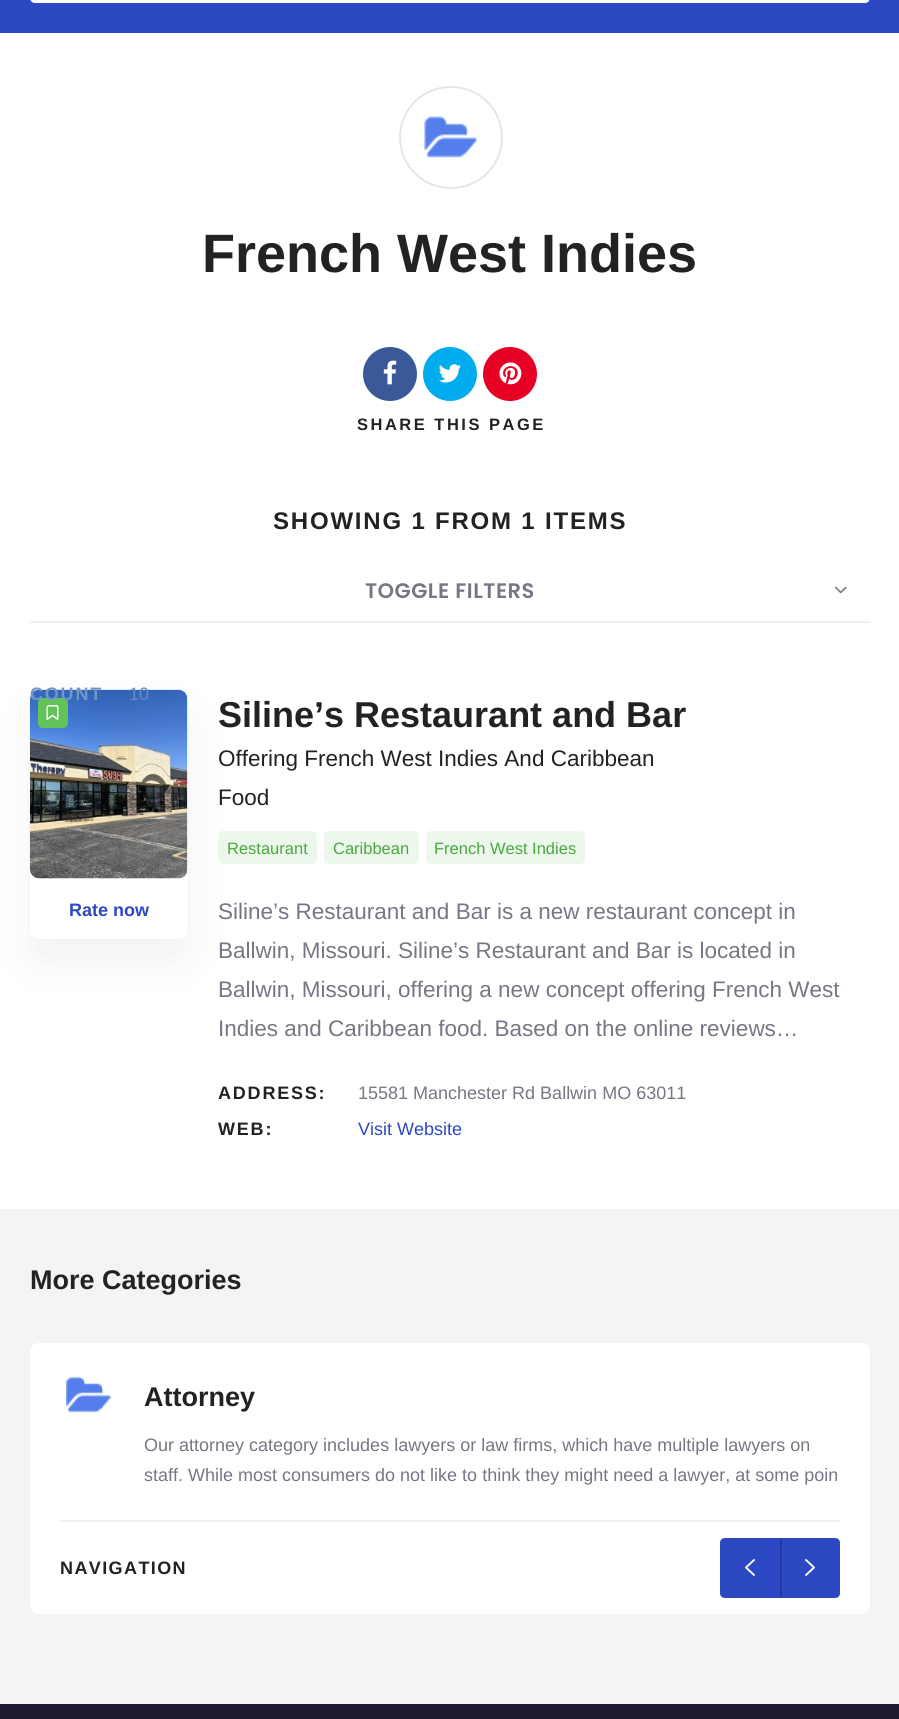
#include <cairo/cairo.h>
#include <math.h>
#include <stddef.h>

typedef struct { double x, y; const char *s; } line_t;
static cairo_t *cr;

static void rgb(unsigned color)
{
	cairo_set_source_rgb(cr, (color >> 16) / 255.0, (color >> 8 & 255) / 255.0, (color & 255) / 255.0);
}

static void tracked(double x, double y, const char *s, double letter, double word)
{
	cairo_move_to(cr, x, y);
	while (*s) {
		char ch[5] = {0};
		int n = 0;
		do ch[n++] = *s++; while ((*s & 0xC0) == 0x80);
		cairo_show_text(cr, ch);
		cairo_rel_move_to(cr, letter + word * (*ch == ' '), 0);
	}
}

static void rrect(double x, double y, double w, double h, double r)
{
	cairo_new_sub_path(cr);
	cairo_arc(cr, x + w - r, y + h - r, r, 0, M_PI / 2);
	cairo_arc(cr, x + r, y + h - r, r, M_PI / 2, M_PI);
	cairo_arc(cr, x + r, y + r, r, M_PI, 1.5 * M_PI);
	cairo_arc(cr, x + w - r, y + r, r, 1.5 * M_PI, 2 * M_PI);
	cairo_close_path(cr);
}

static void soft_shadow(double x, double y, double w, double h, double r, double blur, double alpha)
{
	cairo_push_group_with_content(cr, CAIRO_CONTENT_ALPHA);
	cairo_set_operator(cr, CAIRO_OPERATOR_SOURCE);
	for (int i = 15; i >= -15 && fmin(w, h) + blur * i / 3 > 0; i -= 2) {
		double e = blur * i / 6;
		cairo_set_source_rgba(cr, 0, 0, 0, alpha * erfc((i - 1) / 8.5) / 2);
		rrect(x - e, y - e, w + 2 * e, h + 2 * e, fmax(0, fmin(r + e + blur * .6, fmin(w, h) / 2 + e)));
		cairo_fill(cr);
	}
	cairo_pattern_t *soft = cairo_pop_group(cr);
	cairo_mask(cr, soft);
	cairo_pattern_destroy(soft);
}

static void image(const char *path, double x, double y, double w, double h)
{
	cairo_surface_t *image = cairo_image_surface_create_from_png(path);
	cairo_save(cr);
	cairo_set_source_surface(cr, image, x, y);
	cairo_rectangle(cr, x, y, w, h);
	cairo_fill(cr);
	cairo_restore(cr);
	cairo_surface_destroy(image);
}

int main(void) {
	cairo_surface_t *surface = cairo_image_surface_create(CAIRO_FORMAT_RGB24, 899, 1719);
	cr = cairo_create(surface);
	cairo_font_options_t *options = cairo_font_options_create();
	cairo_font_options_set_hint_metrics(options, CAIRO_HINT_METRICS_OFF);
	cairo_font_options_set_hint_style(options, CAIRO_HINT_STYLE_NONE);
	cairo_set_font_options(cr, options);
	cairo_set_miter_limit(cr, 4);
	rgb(0xffffff);
	cairo_paint(cr);
	rgb(0x2d48c3);
	cairo_rectangle(cr, 0, 0, 899, 33);
	cairo_fill(cr);
	rgb(0xffffff);
	rrect(30, -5, 840, 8, 5);
	cairo_fill(cr);
	rrect(400, 87, 102, 101, 50.5);
	rgb(0xe6e6e6);
	cairo_stroke(cr);
	image("img/1.png", 424, 116, 53, 42);
	rgb(0x3b5998);
	cairo_arc(cr, 390, 374, 27, 0, 2 * M_PI);
	cairo_fill(cr);
	image("img/2.png", 383, 360, 14, 25);
	rgb(0x00aced);
	cairo_arc(cr, 450, 374, 27, 0, 2 * M_PI);
	cairo_fill(cr);
	image("img/3.png", 438, 364, 23, 19);
	rgb(0xe60023);
	cairo_arc(cr, 510, 374, 27, 0, 2 * M_PI);
	cairo_fill(cr);
	image("img/4.png", 499, 362, 23, 23);
	rgb(0xf0f0f0);
	cairo_rectangle(cr, 30, 621, 840, 2);
	cairo_fill(cr);
	image("img/5.png", 835, 586, 12, 8);
	rrect(30, 690, 158, 250, 10);
	rgb(0xfcfcfc);
	cairo_stroke(cr);
	rgb(0x000000);
	soft_shadow(30, 713, 158, 249, 9, 22.5, 0.05);
	rgb(0xffffff);
	rrect(30, 690, 158, 249, 9);
	cairo_fill(cr);
	image("img/6.png", 30, 689, 158, 190);
	rgb(0x62c358);
	rrect(38, 698, 30, 30, 5);
	cairo_fill(cr);
	image("img/7.png", 46, 705, 13, 15);
	rgb(0xedf8ec);
	rrect(218, 831, 99, 33, 5);
	cairo_fill(cr);
	rrect(324, 831, 95, 33, 5);
	cairo_fill(cr);
	rrect(426, 831, 159, 33, 5);
	cairo_fill(cr);
	rgb(0xf4f4f6);
	cairo_rectangle(cr, 0, 1209, 899, 495);
	cairo_fill(cr);
	rgb(0xffffff);
	rrect(30, 1343, 840, 271, 9);
	cairo_fill(cr);
	image("img/8.png", 66, 1376, 45, 37);
	rgb(0xf0f0f0);
	cairo_rectangle(cr, 60, 1520, 780, 2);
	cairo_fill(cr);
	rgb(0x2d48c3);
	cairo_new_path(cr);
	cairo_move_to(cr, 725, 1538);
	cairo_line_to(cr, 780, 1538);
	cairo_line_to(cr, 780, 1598);
	cairo_line_to(cr, 725, 1598);
	cairo_curve_to(cr, 722, 1598, 720, 1596, 720, 1593);
	cairo_line_to(cr, 720, 1543);
	cairo_curve_to(cr, 720, 1540, 722, 1538, 725, 1538);
	cairo_close_path(cr);
	cairo_fill(cr);
	cairo_new_path(cr);
	cairo_move_to(cr, 754, 1575);
	cairo_line_to(cr, 746, 1567.5);
	cairo_line_to(cr, 754, 1560);
	rgb(0xfdfdfe);
	cairo_set_line_width(cr, 1.9);
	cairo_set_line_cap(cr, CAIRO_LINE_CAP_ROUND);
	cairo_set_line_join(cr, CAIRO_LINE_JOIN_ROUND);
	cairo_stroke(cr);
	rgb(0x2d48c3);
	cairo_new_path(cr);
	cairo_move_to(cr, 780, 1538);
	cairo_line_to(cr, 835, 1538);
	cairo_curve_to(cr, 838, 1538, 840, 1540, 840, 1543);
	cairo_line_to(cr, 840, 1593);
	cairo_curve_to(cr, 840, 1596, 838, 1598, 835, 1598);
	cairo_line_to(cr, 780, 1598);
	cairo_close_path(cr);
	cairo_fill(cr);
	rgb(0x243a9c);
	cairo_rectangle(cr, 780, 1538, 2, 60);
	cairo_fill(cr);
	cairo_new_path(cr);
	cairo_move_to(cr, 806, 1575);
	cairo_line_to(cr, 814, 1567.5);
	cairo_line_to(cr, 806, 1560);
	rgb(0xfdfdfe);
	cairo_stroke(cr);
	rgb(0x1f1c31);
	cairo_rectangle(cr, 0, 1704, 899, 15);
	cairo_fill(cr);
	cairo_select_font_face(cr, "Liberation Sans", CAIRO_FONT_SLANT_NORMAL, CAIRO_FONT_WEIGHT_BOLD);
	cairo_set_font_size(cr, 54);
	rgb(0x222222);
	cairo_move_to(cr, 202, 272);
	cairo_show_text(cr, "French West Indies");
	cairo_set_font_size(cr, 16.5);
	tracked(357, 430, "SHARE THIS PAGE", 2.5, 0);
	cairo_set_font_size(cr, 24);
	tracked(273, 529, "SHOWING 1 FROM 1 ITEMS", 1.8, 0);
	cairo_select_font_face(cr, "Poppins SemiBold", CAIRO_FONT_SLANT_NORMAL, CAIRO_FONT_WEIGHT_NORMAL);
	cairo_set_font_size(cr, 21);
	rgb(0x767685);
	tracked(365, 598, "TOGGLE FILTERS", 0.5, 0);
	cairo_select_font_face(cr, "Liberation Sans", CAIRO_FONT_SLANT_NORMAL, CAIRO_FONT_WEIGHT_BOLD);
	cairo_set_font_size(cr, 18);
	rgb(0x7097c7);
	tracked(30, 700, "COUNT", 1.8, 0);
	cairo_select_font_face(cr, "Liberation Sans", CAIRO_FONT_SLANT_NORMAL, CAIRO_FONT_WEIGHT_NORMAL);
	rgb(0x668ac9);
	cairo_move_to(cr, 129, 700);
	cairo_show_text(cr, "10");
	cairo_select_font_face(cr, "Liberation Sans", CAIRO_FONT_SLANT_NORMAL, CAIRO_FONT_WEIGHT_BOLD);
	rgb(0x2d48c3);
	cairo_move_to(cr, 69, 916);
	cairo_show_text(cr, "Rate now");
	cairo_set_font_size(cr, 36);
	rgb(0x222222);
	cairo_move_to(cr, 218, 727);
	cairo_show_text(cr, "Siline’s Restaurant and Bar");
	cairo_select_font_face(cr, "Liberation Sans", CAIRO_FONT_SLANT_NORMAL, CAIRO_FONT_WEIGHT_NORMAL);
	cairo_set_font_size(cr, 22.5);
	cairo_move_to(cr, 218, 766);
	cairo_show_text(cr, "Offering French West Indies And Caribbean");
	cairo_move_to(cr, 218, 805);
	cairo_show_text(cr, "Food");
	cairo_set_font_size(cr, 16.5);
	rgb(0x48a93d);
	{
		static const line_t items[] = {
			{227, 854, "Restaurant"},
			{333, 854, "Caribbean"},
			{434, 854, "French West Indies"},
		};
		for (size_t i = 0; i < sizeof items / sizeof *items; i++) {
			cairo_move_to(cr, items[i].x, items[i].y);
			cairo_show_text(cr, items[i].s);
		}
	}
	cairo_set_font_size(cr, 22.5);
	rgb(0x767685);
	{
		static const line_t items[] = {
			{218, 919, "Siline’s Restaurant and Bar is a new restaurant concept in"},
			{218, 958, "Ballwin, Missouri. Siline’s Restaurant and Bar is located in"},
			{218, 997, "Ballwin, Missouri, offering a new concept offering French West"},
			{218, 1036, "Indies and Caribbean food. Based on the online reviews…"},
		};
		for (size_t i = 0; i < sizeof items / sizeof *items; i++) {
			cairo_move_to(cr, items[i].x, items[i].y);
			cairo_show_text(cr, items[i].s);
		}
	}
	cairo_select_font_face(cr, "Liberation Sans", CAIRO_FONT_SLANT_NORMAL, CAIRO_FONT_WEIGHT_BOLD);
	cairo_set_font_size(cr, 18);
	rgb(0x222222);
	tracked(218, 1099, "ADDRESS:", 1.8, 0);
	cairo_select_font_face(cr, "Liberation Sans", CAIRO_FONT_SLANT_NORMAL, CAIRO_FONT_WEIGHT_NORMAL);
	rgb(0x767685);
	cairo_move_to(cr, 358, 1099);
	cairo_show_text(cr, "15581 Manchester Rd Ballwin MO 63011");
	cairo_select_font_face(cr, "Liberation Sans", CAIRO_FONT_SLANT_NORMAL, CAIRO_FONT_WEIGHT_BOLD);
	rgb(0x222222);
	tracked(218, 1135, "WEB:", 1.8, 0);
	cairo_select_font_face(cr, "Liberation Sans", CAIRO_FONT_SLANT_NORMAL, CAIRO_FONT_WEIGHT_NORMAL);
	rgb(0x2d48c3);
	cairo_move_to(cr, 358, 1135);
	cairo_show_text(cr, "Visit Website");
	cairo_select_font_face(cr, "Liberation Sans", CAIRO_FONT_SLANT_NORMAL, CAIRO_FONT_WEIGHT_BOLD);
	cairo_set_font_size(cr, 27);
	rgb(0x222222);
	cairo_move_to(cr, 30, 1289);
	cairo_show_text(cr, "More Categories");
	cairo_move_to(cr, 144, 1406);
	cairo_show_text(cr, "Attorney");
	cairo_select_font_face(cr, "Liberation Sans", CAIRO_FONT_SLANT_NORMAL, CAIRO_FONT_WEIGHT_NORMAL);
	cairo_set_font_size(cr, 18);
	rgb(0x767685);
	cairo_move_to(cr, 144, 1451);
	cairo_show_text(cr, "Our attorney category includes lawyers or law firms, which have multiple lawyers on");
	cairo_move_to(cr, 144, 1481);
	cairo_show_text(cr, "staff. While most consumers do not like to think they might need a lawyer, at some poin");
	cairo_select_font_face(cr, "Liberation Sans", CAIRO_FONT_SLANT_NORMAL, CAIRO_FONT_WEIGHT_BOLD);
	rgb(0x222222);
	tracked(60, 1574, "NAVIGATION", 1.4, 0);
	cairo_surface_write_to_png(surface, "page.png");
	cairo_font_options_destroy(options);
	cairo_destroy(cr);
	cairo_surface_destroy(surface);
	return 0;
}
